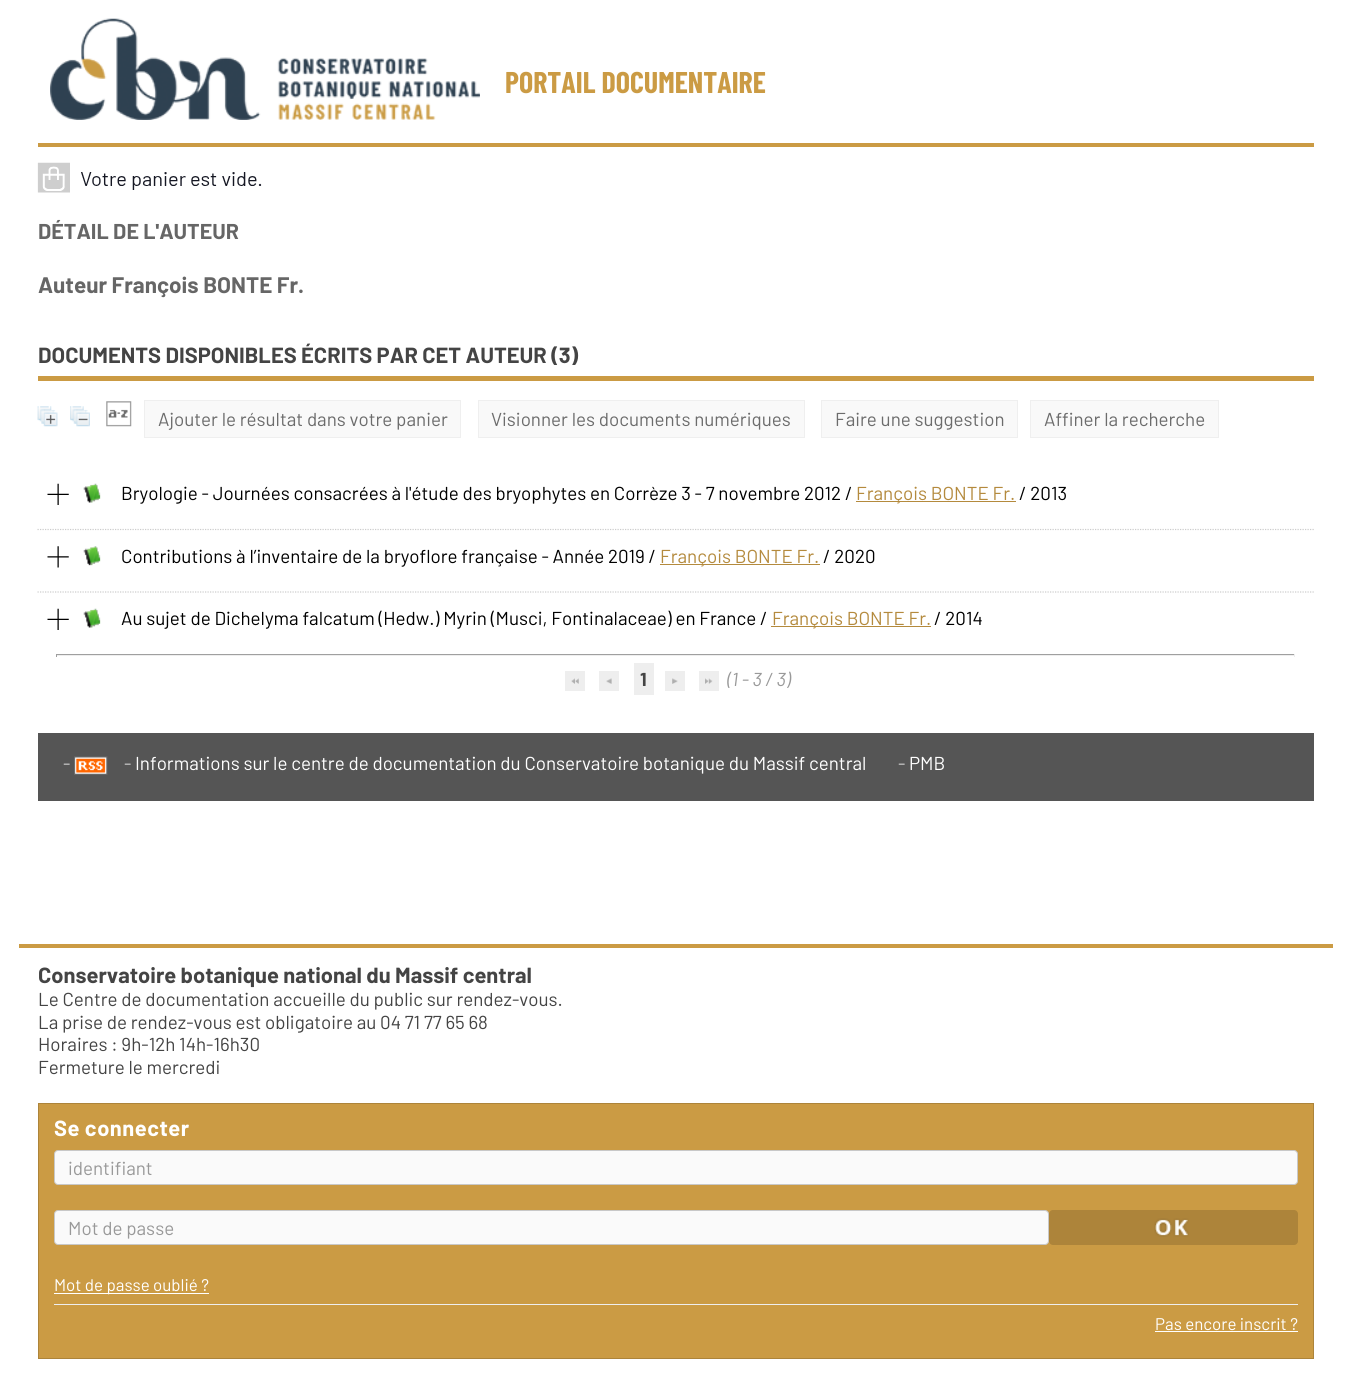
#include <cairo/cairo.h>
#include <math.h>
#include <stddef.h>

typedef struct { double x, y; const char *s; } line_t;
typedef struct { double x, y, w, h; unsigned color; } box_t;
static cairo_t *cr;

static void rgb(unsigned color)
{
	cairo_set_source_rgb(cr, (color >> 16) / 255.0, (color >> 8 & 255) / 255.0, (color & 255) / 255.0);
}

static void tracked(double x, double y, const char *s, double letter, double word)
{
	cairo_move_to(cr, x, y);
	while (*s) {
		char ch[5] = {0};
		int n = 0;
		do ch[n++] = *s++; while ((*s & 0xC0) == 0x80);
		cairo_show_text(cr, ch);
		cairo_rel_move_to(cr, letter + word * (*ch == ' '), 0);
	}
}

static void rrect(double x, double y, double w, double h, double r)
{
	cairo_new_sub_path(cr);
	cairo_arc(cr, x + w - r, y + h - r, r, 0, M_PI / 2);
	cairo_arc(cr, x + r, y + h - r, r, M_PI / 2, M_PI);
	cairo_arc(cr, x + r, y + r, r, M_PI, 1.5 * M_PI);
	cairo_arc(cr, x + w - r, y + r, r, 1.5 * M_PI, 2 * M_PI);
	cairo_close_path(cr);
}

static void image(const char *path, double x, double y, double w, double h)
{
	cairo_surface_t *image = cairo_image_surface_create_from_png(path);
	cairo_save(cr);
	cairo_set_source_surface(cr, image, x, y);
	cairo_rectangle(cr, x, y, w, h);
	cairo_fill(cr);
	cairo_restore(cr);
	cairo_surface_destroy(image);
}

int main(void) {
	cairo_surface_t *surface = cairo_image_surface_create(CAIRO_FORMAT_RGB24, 1351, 1385);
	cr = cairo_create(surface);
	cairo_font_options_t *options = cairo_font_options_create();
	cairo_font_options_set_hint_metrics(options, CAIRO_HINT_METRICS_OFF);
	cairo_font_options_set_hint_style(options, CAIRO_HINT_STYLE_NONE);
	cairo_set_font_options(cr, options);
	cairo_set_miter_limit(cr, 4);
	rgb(0xffffff);
	cairo_paint(cr);
	image("img/1.png", 50, 18, 430, 102);
	rgb(0xcb9b44);
	cairo_rectangle(cr, 38, 143, 1276, 4);
	cairo_fill(cr);
	image("img/2.png", 37, 162, 225, 31);
	cairo_rectangle(cr, 38, 376, 1276, 5);
	cairo_fill(cr);
	image("img/3.png", 37, 406, 21, 21);
	image("img/4.png", 70, 406, 20, 21);
	image("img/5.png", 106, 401, 26, 26);
	rgb(0xf9f9f9);
	cairo_rectangle(cr, 144.5, 400.5, 316, 37);
	cairo_fill_preserve(cr);
	rgb(0xefefef);
	cairo_set_line_width(cr, 1);
	cairo_stroke(cr);
	rgb(0xf9f9f9);
	cairo_rectangle(cr, 478.5, 400.5, 326, 37);
	cairo_fill_preserve(cr);
	rgb(0xefefef);
	cairo_stroke(cr);
	rgb(0xf9f9f9);
	cairo_rectangle(cr, 821.5, 400.5, 196, 37);
	cairo_fill_preserve(cr);
	rgb(0xefefef);
	cairo_stroke(cr);
	rgb(0xf9f9f9);
	cairo_rectangle(cr, 1030.5, 400.5, 188, 37);
	cairo_fill_preserve(cr);
	rgb(0xefefef);
	cairo_stroke(cr);
	image("img/6.png", 47, 483, 22, 22);
	image("img/7.png", 83, 483, 18, 20);
	rgb(0xb48a3d);
	cairo_rectangle(cr, 856, 501, 160, 1);
	cairo_fill(cr);
	cairo_new_path(cr);
	cairo_move_to(cr, 37.5, 529.5);
	cairo_line_to(cr, 1314, 529.5);
	rgb(0xcccccc);
	cairo_set_line_width(cr, 1.2);
	cairo_set_dash(cr, (double[]){1.25, 1.25}, 2, 0);
	cairo_stroke(cr);
	image("img/8.png", 47, 546, 22, 22);
	image("img/9.png", 83, 546, 18, 20);
	rgb(0xb48a3d);
	cairo_rectangle(cr, 660, 564, 160, 1);
	cairo_fill(cr);
	cairo_new_path(cr);
	cairo_move_to(cr, 37.5, 592);
	cairo_line_to(cr, 1314, 592);
	rgb(0xcccccc);
	cairo_stroke(cr);
	image("img/6.png", 47, 608, 22, 22);
	image("img/7.png", 83, 608, 18, 20);
	{
		static const box_t items[] = {
			{771, 626, 160, 1, 0xb48a3d},
			{56, 654, 1239, 1, 0x9f9f9f},
			{1294, 654, 1, 3, 0xeeeeee},
			{56, 655, 1239, 1, 0xeeeeee},
			{56, 654, 1, 3, 0x9f9f9f},
			{565, 671, 20, 20, 0xeeeeee},
		};
		for (size_t i = 0; i < sizeof items / sizeof *items; i++) {
			rgb(items[i].color);
			cairo_rectangle(cr, items[i].x, items[i].y, items[i].w, items[i].h);
			cairo_fill(cr);
		}
	}
	image("img/10.png", 571, 678, 8, 6);
	cairo_rectangle(cr, 599, 671, 20, 20);
	cairo_fill(cr);
	image("img/11.png", 606, 678, 6, 6);
	cairo_rectangle(cr, 634, 663, 20, 32);
	cairo_fill(cr);
	cairo_rectangle(cr, 665, 671, 20, 20);
	cairo_fill(cr);
	image("img/12.png", 672, 678, 6, 6);
	cairo_rectangle(cr, 699, 671, 20, 20);
	cairo_fill(cr);
	image("img/13.png", 705, 678, 8, 6);
	rgb(0x555555);
	cairo_rectangle(cr, 38, 733, 1276, 68);
	cairo_fill(cr);
	image("img/14.png", 74, 756, 34, 19);
	rgb(0xcb9b44);
	cairo_rectangle(cr, 19, 944, 1314, 4);
	cairo_fill(cr);
	cairo_rectangle(cr, 38.5, 1103.5, 1275, 255);
	cairo_fill_preserve(cr);
	rgb(0xad843a);
	cairo_set_line_width(cr, 1);
	cairo_set_dash(cr, NULL, 0, 0);
	cairo_stroke(cr);
	rgb(0xfafafa);
	rrect(54.5, 1150.5, 1243, 34, 3.5);
	cairo_fill_preserve(cr);
	rgb(0xc8c8c8);
	cairo_stroke(cr);
	rgb(0xfafafa);
	rrect(54.5, 1210.5, 994, 34, 3.5);
	cairo_fill_preserve(cr);
	rgb(0xc8c8c8);
	cairo_stroke(cr);
	rgb(0xad843a);
	rrect(1049, 1210, 249, 35, 4);
	cairo_fill(cr);
	image("img/15.png", 1154, 1218, 35, 19);
	{
		static const box_t items[] = {
			{54, 1293, 155, 1, 0xffffff},
			{54, 1304, 1244, 1, 0xeeeeee},
			{1155, 1331, 143, 1, 0xffffff},
		};
		for (size_t i = 0; i < sizeof items / sizeof *items; i++) {
			rgb(items[i].color);
			cairo_rectangle(cr, items[i].x, items[i].y, items[i].w, items[i].h);
			cairo_fill(cr);
		}
	}
	cairo_select_font_face(cr, "Barlow Condensed", CAIRO_FONT_SLANT_NORMAL, CAIRO_FONT_WEIGHT_BOLD);
	cairo_set_font_size(cr, 30);
	rgb(0xcb9b44);
	cairo_move_to(cr, 505, 93);
	cairo_show_text(cr, "PORTAIL DOCUMENTAIRE");
	cairo_select_font_face(cr, "Barlow", CAIRO_FONT_SLANT_NORMAL, CAIRO_FONT_WEIGHT_BOLD);
	cairo_set_font_size(cr, 21.5);
	rgb(0x666666);
	cairo_move_to(cr, 38, 239);
	cairo_show_text(cr, "DÉTAIL DE L'AUTEUR");
	cairo_set_font_size(cr, 22.5);
	cairo_move_to(cr, 38, 293);
	cairo_show_text(cr, "Auteur François BONTE Fr.");
	cairo_set_font_size(cr, 21.9);
	rgb(0x444444);
	cairo_move_to(cr, 38, 363);
	cairo_show_text(cr, "DOCUMENTS DISPONIBLES ÉCRITS PAR CET AUTEUR (3)");
	cairo_select_font_face(cr, "Barlow", CAIRO_FONT_SLANT_NORMAL, CAIRO_FONT_WEIGHT_NORMAL);
	cairo_set_font_size(cr, 18.75);
	rgb(0x6c6c6c);
	{
		static const line_t items[] = {
			{158, 426, "Ajouter le résultat dans votre panier"},
			{491, 426, "Visionner les documents numériques"},
			{835, 426, "Faire une suggestion"},
			{1044, 426, "Affiner la recherche"},
		};
		for (size_t i = 0; i < sizeof items / sizeof *items; i++) {
			cairo_move_to(cr, items[i].x, items[i].y);
			cairo_show_text(cr, items[i].s);
		}
	}
	rgb(0x000000);
	cairo_move_to(cr, 121, 500);
	cairo_show_text(cr, "Bryologie - Journées consacrées à l'étude des bryophytes en Corrèze 3 - 7 novembre 2012 /");
	rgb(0xb48a3d);
	cairo_move_to(cr, 856, 500);
	cairo_show_text(cr, "François BONTE Fr.");
	rgb(0x000000);
	cairo_move_to(cr, 1019, 500);
	cairo_show_text(cr, "/ 2013");
	cairo_move_to(cr, 121, 563);
	cairo_show_text(cr, "Contributions à l’inventaire de la bryoflore française - Année 2019 /");
	rgb(0xb48a3d);
	cairo_move_to(cr, 660, 563);
	cairo_show_text(cr, "François BONTE Fr.");
	rgb(0x000000);
	cairo_move_to(cr, 823, 563);
	cairo_show_text(cr, "/ 2020");
	cairo_move_to(cr, 121, 625);
	cairo_show_text(cr, "Au sujet de Dichelyma falcatum (Hedw.) Myrin (Musci, Fontinalaceae) en France /");
	rgb(0xb48a3d);
	cairo_move_to(cr, 772, 625);
	cairo_show_text(cr, "François BONTE Fr.");
	rgb(0x000000);
	cairo_move_to(cr, 934, 625);
	cairo_show_text(cr, "/ 2014");
	cairo_select_font_face(cr, "Barlow", CAIRO_FONT_SLANT_NORMAL, CAIRO_FONT_WEIGHT_BOLD);
	rgb(0x444444);
	cairo_move_to(cr, 640, 686);
	cairo_show_text(cr, "1");
	cairo_select_font_face(cr, "Barlow", CAIRO_FONT_SLANT_ITALIC, CAIRO_FONT_WEIGHT_NORMAL);
	rgb(0x999999);
	cairo_move_to(cr, 727, 686);
	cairo_show_text(cr, "(1 - 3 / 3)");
	cairo_select_font_face(cr, "Barlow", CAIRO_FONT_SLANT_NORMAL, CAIRO_FONT_WEIGHT_NORMAL);
	rgb(0xcecece);
	cairo_move_to(cr, 63, 770);
	cairo_show_text(cr, "-");
	cairo_move_to(cr, 124, 770);
	cairo_show_text(cr, "-");
	rgb(0xffffff);
	cairo_move_to(cr, 135, 770);
	cairo_show_text(cr, "Informations sur le centre de documentation du Conservatoire botanique du Massif central");
	rgb(0xcecece);
	cairo_move_to(cr, 898, 770);
	cairo_show_text(cr, "-");
	rgb(0xffffff);
	cairo_move_to(cr, 909, 770);
	cairo_show_text(cr, "PMB");
	cairo_select_font_face(cr, "Barlow", CAIRO_FONT_SLANT_NORMAL, CAIRO_FONT_WEIGHT_BOLD);
	cairo_set_font_size(cr, 21.9);
	rgb(0x444444);
	cairo_move_to(cr, 38, 983);
	cairo_show_text(cr, "Conservatoire botanique national du Massif central");
	cairo_select_font_face(cr, "Barlow", CAIRO_FONT_SLANT_NORMAL, CAIRO_FONT_WEIGHT_NORMAL);
	cairo_set_font_size(cr, 18.75);
	{
		static const line_t items[] = {
			{38, 1006, "Le Centre de documentation accueille du public sur rendez-vous."},
			{38, 1029, "La prise de rendez-vous est obligatoire au 04 71 77 65 68"},
			{38, 1051, "Horaires : 9h-12h 14h-16h30"},
			{38, 1074, "Fermeture le mercredi"},
		};
		for (size_t i = 0; i < sizeof items / sizeof *items; i++) {
			cairo_move_to(cr, items[i].x, items[i].y);
			cairo_show_text(cr, items[i].s);
		}
	}
	cairo_select_font_face(cr, "Barlow", CAIRO_FONT_SLANT_NORMAL, CAIRO_FONT_WEIGHT_BOLD);
	cairo_set_font_size(cr, 21.9);
	rgb(0xffffff);
	tracked(54, 1136, "Se connecter", 0.5, 0);
	cairo_select_font_face(cr, "Barlow", CAIRO_FONT_SLANT_NORMAL, CAIRO_FONT_WEIGHT_NORMAL);
	cairo_set_font_size(cr, 18.75);
	rgb(0x999999);
	cairo_move_to(cr, 68, 1175);
	cairo_show_text(cr, "identifiant");
	cairo_move_to(cr, 68, 1235);
	cairo_show_text(cr, "Mot de passe");
	cairo_set_font_size(cr, 16.9);
	rgb(0xffffff);
	cairo_move_to(cr, 54, 1291);
	cairo_show_text(cr, "Mot de passe oublié ?");
	cairo_move_to(cr, 1155, 1330);
	cairo_show_text(cr, "Pas encore inscrit ?");
	cairo_surface_write_to_png(surface, "page.png");
	cairo_font_options_destroy(options);
	cairo_destroy(cr);
	cairo_surface_destroy(surface);
	return 0;
}
